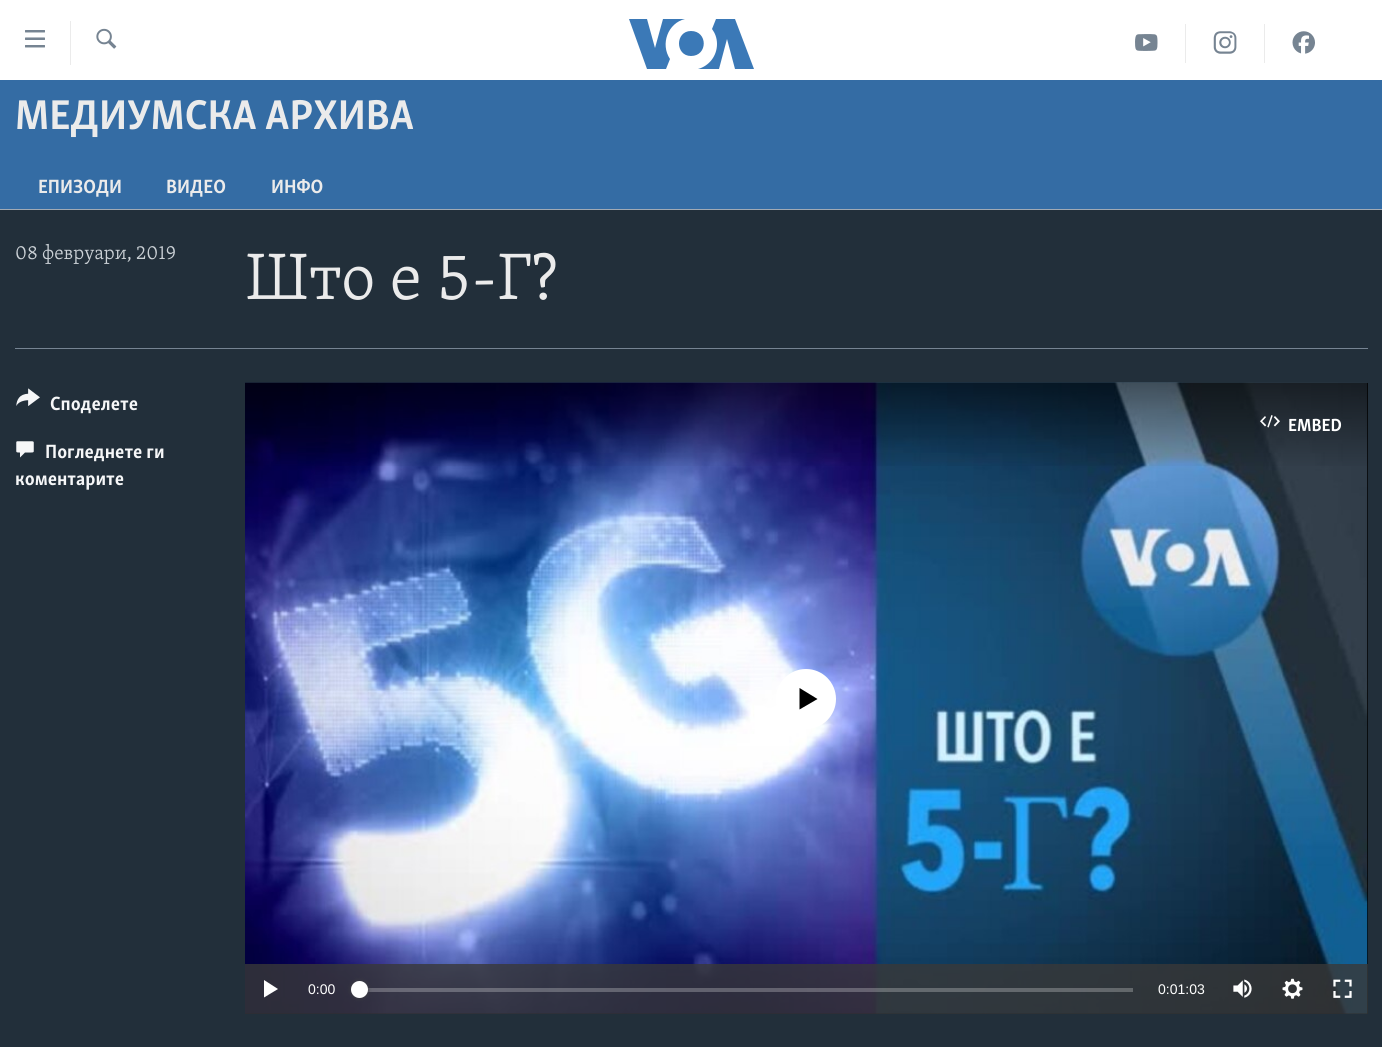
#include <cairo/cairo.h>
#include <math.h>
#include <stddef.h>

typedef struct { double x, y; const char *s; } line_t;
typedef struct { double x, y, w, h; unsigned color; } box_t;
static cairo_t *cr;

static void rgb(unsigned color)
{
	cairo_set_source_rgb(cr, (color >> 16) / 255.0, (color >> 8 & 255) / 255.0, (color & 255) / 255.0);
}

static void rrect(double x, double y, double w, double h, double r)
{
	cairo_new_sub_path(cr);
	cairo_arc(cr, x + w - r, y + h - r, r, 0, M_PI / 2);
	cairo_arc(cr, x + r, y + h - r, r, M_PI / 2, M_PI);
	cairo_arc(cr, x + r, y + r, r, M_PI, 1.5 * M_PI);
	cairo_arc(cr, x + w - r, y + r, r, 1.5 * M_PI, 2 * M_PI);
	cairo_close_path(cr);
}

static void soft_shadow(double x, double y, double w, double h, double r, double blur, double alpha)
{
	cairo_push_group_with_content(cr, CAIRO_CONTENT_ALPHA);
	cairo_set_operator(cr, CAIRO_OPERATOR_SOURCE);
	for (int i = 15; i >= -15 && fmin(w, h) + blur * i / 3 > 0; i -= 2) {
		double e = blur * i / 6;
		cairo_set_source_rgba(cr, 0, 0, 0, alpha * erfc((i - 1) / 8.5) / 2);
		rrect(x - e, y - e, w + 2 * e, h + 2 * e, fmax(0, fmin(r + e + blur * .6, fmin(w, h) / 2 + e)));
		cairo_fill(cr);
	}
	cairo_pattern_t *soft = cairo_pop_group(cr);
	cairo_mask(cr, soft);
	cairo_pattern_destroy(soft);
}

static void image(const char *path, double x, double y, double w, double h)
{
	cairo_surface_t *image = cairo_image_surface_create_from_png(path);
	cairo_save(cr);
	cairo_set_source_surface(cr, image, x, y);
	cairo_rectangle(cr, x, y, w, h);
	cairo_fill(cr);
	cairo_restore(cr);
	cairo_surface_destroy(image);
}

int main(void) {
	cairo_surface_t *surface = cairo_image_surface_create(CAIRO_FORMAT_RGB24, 1382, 1047);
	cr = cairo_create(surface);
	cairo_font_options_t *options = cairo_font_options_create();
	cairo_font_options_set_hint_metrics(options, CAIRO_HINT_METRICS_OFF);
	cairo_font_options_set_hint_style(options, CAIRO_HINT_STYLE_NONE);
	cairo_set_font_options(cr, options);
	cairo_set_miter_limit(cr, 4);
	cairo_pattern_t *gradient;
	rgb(0xffffff);
	cairo_paint(cr);
	image("img/1.png", 25, 30, 20, 18);
	rgb(0xebebeb);
	cairo_rectangle(cr, 70, 21, 1, 44);
	cairo_fill(cr);
	image("img/2.png", 96, 28, 21, 21);
	rgb(0x3b79b7);
	cairo_new_path(cr);
	cairo_move_to(cr, 670, 59);
	cairo_line_to(cr, 666, 69);
	cairo_line_to(cr, 647, 69);
	cairo_line_to(cr, 629, 19);
	cairo_line_to(cr, 647, 19);
	cairo_line_to(cr, 655, 48);
	cairo_line_to(cr, 663, 19);
	cairo_line_to(cr, 685, 19);
	cairo_curve_to(cr, 668, 23, 660, 44, 670, 59);
	cairo_close_path(cr);
	cairo_move_to(cr, 691, 31);
	cairo_curve_to(cr, 675, 31, 675, 56, 691, 56);
	cairo_curve_to(cr, 708, 56, 708, 31, 691, 31);
	cairo_close_path(cr);
	cairo_move_to(cr, 717, 44);
	cairo_curve_to(cr, 717, 56, 709, 66, 698, 69);
	cairo_line_to(cr, 719, 69);
	cairo_line_to(cr, 727, 39);
	cairo_line_to(cr, 735, 69);
	cairo_line_to(cr, 754, 69);
	cairo_line_to(cr, 735, 19);
	cairo_line_to(cr, 716, 19);
	cairo_line_to(cr, 712, 29);
	cairo_curve_to(cr, 715, 33, 717, 38, 717, 44);
	cairo_close_path(cr);
	cairo_fill(cr);
	rgb(0xebebeb);
	cairo_rectangle(cr, 1185, 24, 1, 39);
	cairo_fill(cr);
	image("img/3.png", 1135, 34, 23, 17);
	cairo_rectangle(cr, 1264, 24, 1, 39);
	cairo_fill(cr);
	image("img/4.png", 1213, 31, 24, 23);
	image("img/5.png", 1292, 31, 23, 23);
	{
		static const box_t items[] = {
			{0, 80, 1382, 129, 0x346ca4},
			{0, 210, 1382, 837, 0x222f3a},
			{0, 209, 1382, 1, 0xa1aab4},
			{15, 348, 1353, 1, 0x768492},
		};
		for (size_t i = 0; i < sizeof items / sizeof *items; i++) {
			rgb(items[i].color);
			cairo_rectangle(cr, items[i].x, items[i].y, items[i].w, items[i].h);
			cairo_fill(cr);
		}
	}
	image("img/6.png", 16, 388, 24, 18);
	image("img/7.png", 16, 441, 18, 17);
	rgb(0x000000);
	cairo_rectangle(cr, 245, 383, 1123, 631);
	cairo_fill(cr);
	image("img/8.png", 245, 382, 1123, 632);
	gradient = cairo_pattern_create_linear(806, 382, 806, 470);
	cairo_pattern_add_color_stop_rgba(gradient, 0, 0, 0, 0, 0.5);
	cairo_pattern_add_color_stop_rgba(gradient, 1, 0, 0, 0, 0);
	cairo_set_source(cr, gradient);
	cairo_pattern_destroy(gradient);
	cairo_rectangle(cr, 245, 383, 1123, 83);
	cairo_fill(cr);
	image("img/9.png", 1260, 415, 20, 13);
	rgb(0xffffff);
	cairo_arc(cr, 806, 699, 30, 0, 2 * M_PI);
	cairo_fill(cr);
	rgb(0x000000);
	cairo_new_path(cr);
	cairo_move_to(cr, 799.5, 709.5);
	cairo_line_to(cr, 817.5, 699);
	cairo_line_to(cr, 799.5, 688);
	cairo_close_path(cr);
	cairo_fill(cr);
	cairo_set_source_rgba(cr, 0.22, 0.22, 0.22, 0.8);
	cairo_rectangle(cr, 245, 964, 1123, 50);
	cairo_fill(cr);
	rgb(0xffffff);
	cairo_new_path(cr);
	cairo_move_to(cr, 264, 997.5);
	cairo_line_to(cr, 278, 989);
	cairo_line_to(cr, 264, 980);
	cairo_close_path(cr);
	cairo_fill(cr);
	cairo_set_source_rgba(cr, 1, 1, 1, 0.25);
	cairo_rectangle(cr, 359, 988, 774, 4);
	cairo_fill(cr);
	rgb(0x414144);
	soft_shadow(351, 981, 17, 17, 8.5, 2, 1);
	rgb(0xffffff);
	cairo_arc(cr, 359.5, 989.5, 8.5, 0, 2 * M_PI);
	cairo_fill(cr);
	image("img/10.png", 1233, 979, 19, 19);
	image("img/11.png", 1282, 978, 21, 21);
	image("img/12.png", 1333, 979, 19, 19);
	cairo_select_font_face(cr, "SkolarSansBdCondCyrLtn", CAIRO_FONT_SLANT_NORMAL, CAIRO_FONT_WEIGHT_BOLD);
	cairo_set_font_size(cr, 42.75);
	rgb(0xebebeb);
	cairo_move_to(cr, 15, 129);
	cairo_show_text(cr, "МЕДИУМСКА АРХИВА");
	cairo_set_font_size(cr, 19.75);
	{
		static const line_t items[] = {
			{38, 193, "ЕПИЗОДИ"},
			{166, 193, "ВИДЕО"},
			{271, 193, "ИНФО"},
		};
		for (size_t i = 0; i < sizeof items / sizeof *items; i++) {
			cairo_move_to(cr, items[i].x, items[i].y);
			cairo_show_text(cr, items[i].s);
		}
	}
	cairo_select_font_face(cr, "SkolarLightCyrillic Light", CAIRO_FONT_SLANT_NORMAL, CAIRO_FONT_WEIGHT_NORMAL);
	rgb(0xcbd1d6);
	cairo_move_to(cr, 15, 259);
	cairo_show_text(cr, "08 февруари, 2019");
	cairo_set_font_size(cr, 67.5);
	rgb(0xebebeb);
	cairo_move_to(cr, 245, 299);
	cairo_show_text(cr, "Што е 5-Г?");
	cairo_select_font_face(cr, "SkolarSansBdCondCyrLtn", CAIRO_FONT_SLANT_NORMAL, CAIRO_FONT_WEIGHT_BOLD);
	cairo_set_font_size(cr, 19.75);
	rgb(0xf6f7f8);
	{
		static const line_t items[] = {
			{50, 410, "Споделете"},
			{45, 458, "Погледнете ги"},
			{15, 485, "коментарите"},
		};
		for (size_t i = 0; i < sizeof items / sizeof *items; i++) {
			cairo_move_to(cr, items[i].x, items[i].y);
			cairo_show_text(cr, items[i].s);
		}
	}
	cairo_set_font_size(cr, 18);
	rgb(0xffffff);
	cairo_move_to(cr, 1288, 431);
	cairo_show_text(cr, "EMBED");
	cairo_select_font_face(cr, "Liberation Sans", CAIRO_FONT_SLANT_NORMAL, CAIRO_FONT_WEIGHT_NORMAL);
	cairo_set_font_size(cr, 14);
	cairo_move_to(cr, 308, 994);
	cairo_show_text(cr, "0:00");
	cairo_move_to(cr, 1158, 994);
	cairo_show_text(cr, "0:01:03");
	cairo_surface_write_to_png(surface, "page.png");
	cairo_font_options_destroy(options);
	cairo_destroy(cr);
	cairo_surface_destroy(surface);
	return 0;
}
